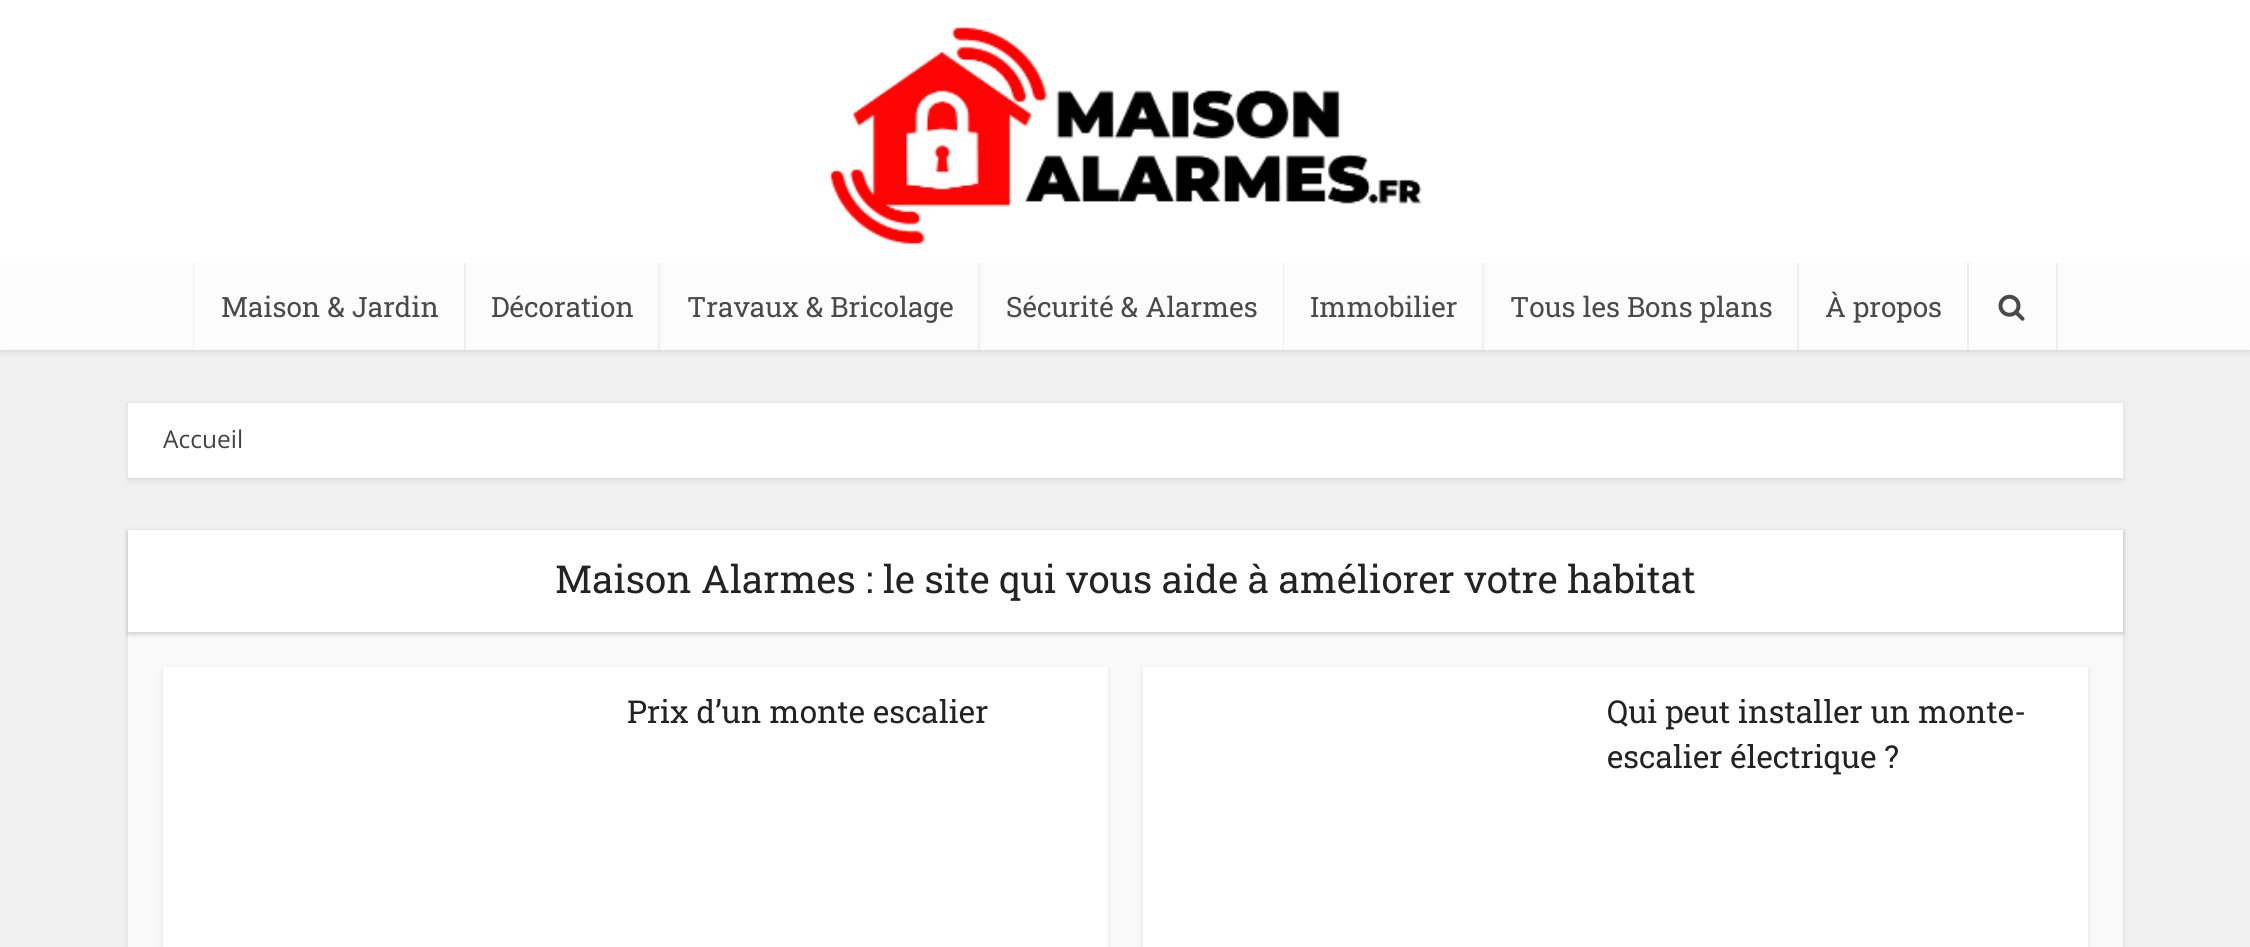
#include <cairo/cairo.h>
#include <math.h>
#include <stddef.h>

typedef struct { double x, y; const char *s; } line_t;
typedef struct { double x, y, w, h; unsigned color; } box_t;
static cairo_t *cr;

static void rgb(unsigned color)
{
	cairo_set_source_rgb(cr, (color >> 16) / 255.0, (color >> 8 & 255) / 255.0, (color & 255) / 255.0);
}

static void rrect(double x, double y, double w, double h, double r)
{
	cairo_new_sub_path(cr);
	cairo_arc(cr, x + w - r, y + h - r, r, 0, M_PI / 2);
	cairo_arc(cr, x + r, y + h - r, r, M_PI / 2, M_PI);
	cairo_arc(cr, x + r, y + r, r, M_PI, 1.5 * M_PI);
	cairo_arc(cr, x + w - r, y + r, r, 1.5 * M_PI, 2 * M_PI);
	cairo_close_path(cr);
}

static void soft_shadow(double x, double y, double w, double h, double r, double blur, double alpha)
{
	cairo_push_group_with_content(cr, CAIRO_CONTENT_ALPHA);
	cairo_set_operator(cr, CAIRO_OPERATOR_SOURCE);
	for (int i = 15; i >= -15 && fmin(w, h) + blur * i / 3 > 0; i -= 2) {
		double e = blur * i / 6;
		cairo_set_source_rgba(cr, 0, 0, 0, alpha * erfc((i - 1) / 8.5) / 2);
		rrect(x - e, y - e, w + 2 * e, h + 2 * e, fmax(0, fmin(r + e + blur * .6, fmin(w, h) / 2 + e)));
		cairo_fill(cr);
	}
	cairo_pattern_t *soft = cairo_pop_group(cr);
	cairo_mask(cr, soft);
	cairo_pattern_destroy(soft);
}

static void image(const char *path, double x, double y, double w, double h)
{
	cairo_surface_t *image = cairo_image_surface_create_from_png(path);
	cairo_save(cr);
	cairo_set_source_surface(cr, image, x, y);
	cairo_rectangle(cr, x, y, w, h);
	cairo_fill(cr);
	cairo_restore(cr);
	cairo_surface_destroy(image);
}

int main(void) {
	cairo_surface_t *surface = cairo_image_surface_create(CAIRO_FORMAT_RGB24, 2250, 947);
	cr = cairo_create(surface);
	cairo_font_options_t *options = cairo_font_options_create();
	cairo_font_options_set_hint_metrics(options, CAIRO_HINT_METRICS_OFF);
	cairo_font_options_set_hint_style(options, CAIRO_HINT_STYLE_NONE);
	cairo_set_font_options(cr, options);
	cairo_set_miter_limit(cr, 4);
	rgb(0xf0f0f0);
	cairo_paint(cr);
	rgb(0x000000);
	soft_shadow(0, 2, 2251, 350, 0, 2.5, 0.1);
	rgb(0xffffff);
	cairo_rectangle(cr, 0, 0, 2250, 263);
	cairo_fill(cr);
	image("img/1.png", 829, 26, 593, 219);
	{
		static const box_t items[] = {
			{0, 263, 2250, 87, 0xfcfcfc},
			{193, 263, 1, 87, 0xefefef},
			{464, 263, 2, 87, 0xefefef},
			{658, 263, 2, 87, 0xefefef},
			{978, 263, 2, 87, 0xefefef},
			{1283, 263, 1, 87, 0xefefef},
			{1482, 263, 2, 87, 0xefefef},
			{1797, 263, 2, 87, 0xefefef},
			{2056, 263, 2, 87, 0xefefef},
			{1967, 263, 2, 87, 0xefefef},
		};
		for (size_t i = 0; i < sizeof items / sizeof *items; i++) {
			rgb(items[i].color);
			cairo_rectangle(cr, items[i].x, items[i].y, items[i].w, items[i].h);
			cairo_fill(cr);
		}
	}
	image("img/2.png", 1998, 294, 27, 27);
	rgb(0x000000);
	soft_shadow(128, 404, 1995, 76, 0, 2.5, 0.1);
	rgb(0xffffff);
	cairo_rectangle(cr, 128, 403, 1995, 75);
	cairo_fill(cr);
	rgb(0x000000);
	soft_shadow(128, 532, 1995, 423, 0, 2.5, 0.1);
	rgb(0xf9f9f9);
	cairo_rectangle(cr, 128, 632, 1995, 315);
	cairo_fill(cr);
	rgb(0x000000);
	soft_shadow(128, 532, 1995, 102, 0, 2.5, 0.1);
	soft_shadow(128, 532, 1995, 102, 0, 2.5, 0.1);
	rgb(0xffffff);
	cairo_rectangle(cr, 128, 530, 1995, 102);
	cairo_fill(cr);
	rgb(0x000000);
	soft_shadow(163, 669, 945, 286, 0, 2.5, 0.1);
	rgb(0xffffff);
	cairo_rectangle(cr, 163, 667, 945, 280);
	cairo_fill(cr);
	rgb(0x000000);
	soft_shadow(1143, 669, 945, 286, 0, 2.5, 0.1);
	rgb(0xffffff);
	cairo_rectangle(cr, 1143, 667, 945, 280);
	cairo_fill(cr);
	cairo_select_font_face(cr, "Roboto Slab", CAIRO_FONT_SLANT_NORMAL, CAIRO_FONT_WEIGHT_NORMAL);
	cairo_set_font_size(cr, 28);
	rgb(0x4a4a4a);
	{
		static const line_t items[] = {
			{221, 317, "Maison & Jardin"},
			{491, 317, "Décoration"},
			{687, 317, "Travaux & Bricolage"},
			{1006, 317, "Sécurité & Alarmes"},
			{1310, 317, "Immobilier"},
			{1510, 317, "Tous les Bons plans"},
			{1825, 317, "À propos"},
		};
		for (size_t i = 0; i < sizeof items / sizeof *items; i++) {
			cairo_move_to(cr, items[i].x, items[i].y);
			cairo_show_text(cr, items[i].s);
		}
	}
	cairo_select_font_face(cr, "Open Sans", CAIRO_FONT_SLANT_NORMAL, CAIRO_FONT_WEIGHT_NORMAL);
	cairo_set_font_size(cr, 24.5);
	rgb(0x444444);
	cairo_move_to(cr, 163, 448);
	cairo_show_text(cr, "Accueil");
	cairo_select_font_face(cr, "Roboto Slab", CAIRO_FONT_SLANT_NORMAL, CAIRO_FONT_WEIGHT_NORMAL);
	cairo_set_font_size(cr, 38.5);
	rgb(0x232323);
	cairo_move_to(cr, 555, 593);
	cairo_show_text(cr, "Maison Alarmes : le site qui vous aide à améliorer votre habitat");
	cairo_set_font_size(cr, 31.5);
	{
		static const line_t items[] = {
			{627, 723, "Prix d’un monte escalier"},
			{1607, 723, "Qui peut installer un monte-"},
			{1607, 768, "escalier électrique ?"},
		};
		for (size_t i = 0; i < sizeof items / sizeof *items; i++) {
			cairo_move_to(cr, items[i].x, items[i].y);
			cairo_show_text(cr, items[i].s);
		}
	}
	cairo_surface_write_to_png(surface, "page.png");
	cairo_font_options_destroy(options);
	cairo_destroy(cr);
	cairo_surface_destroy(surface);
	return 0;
}
